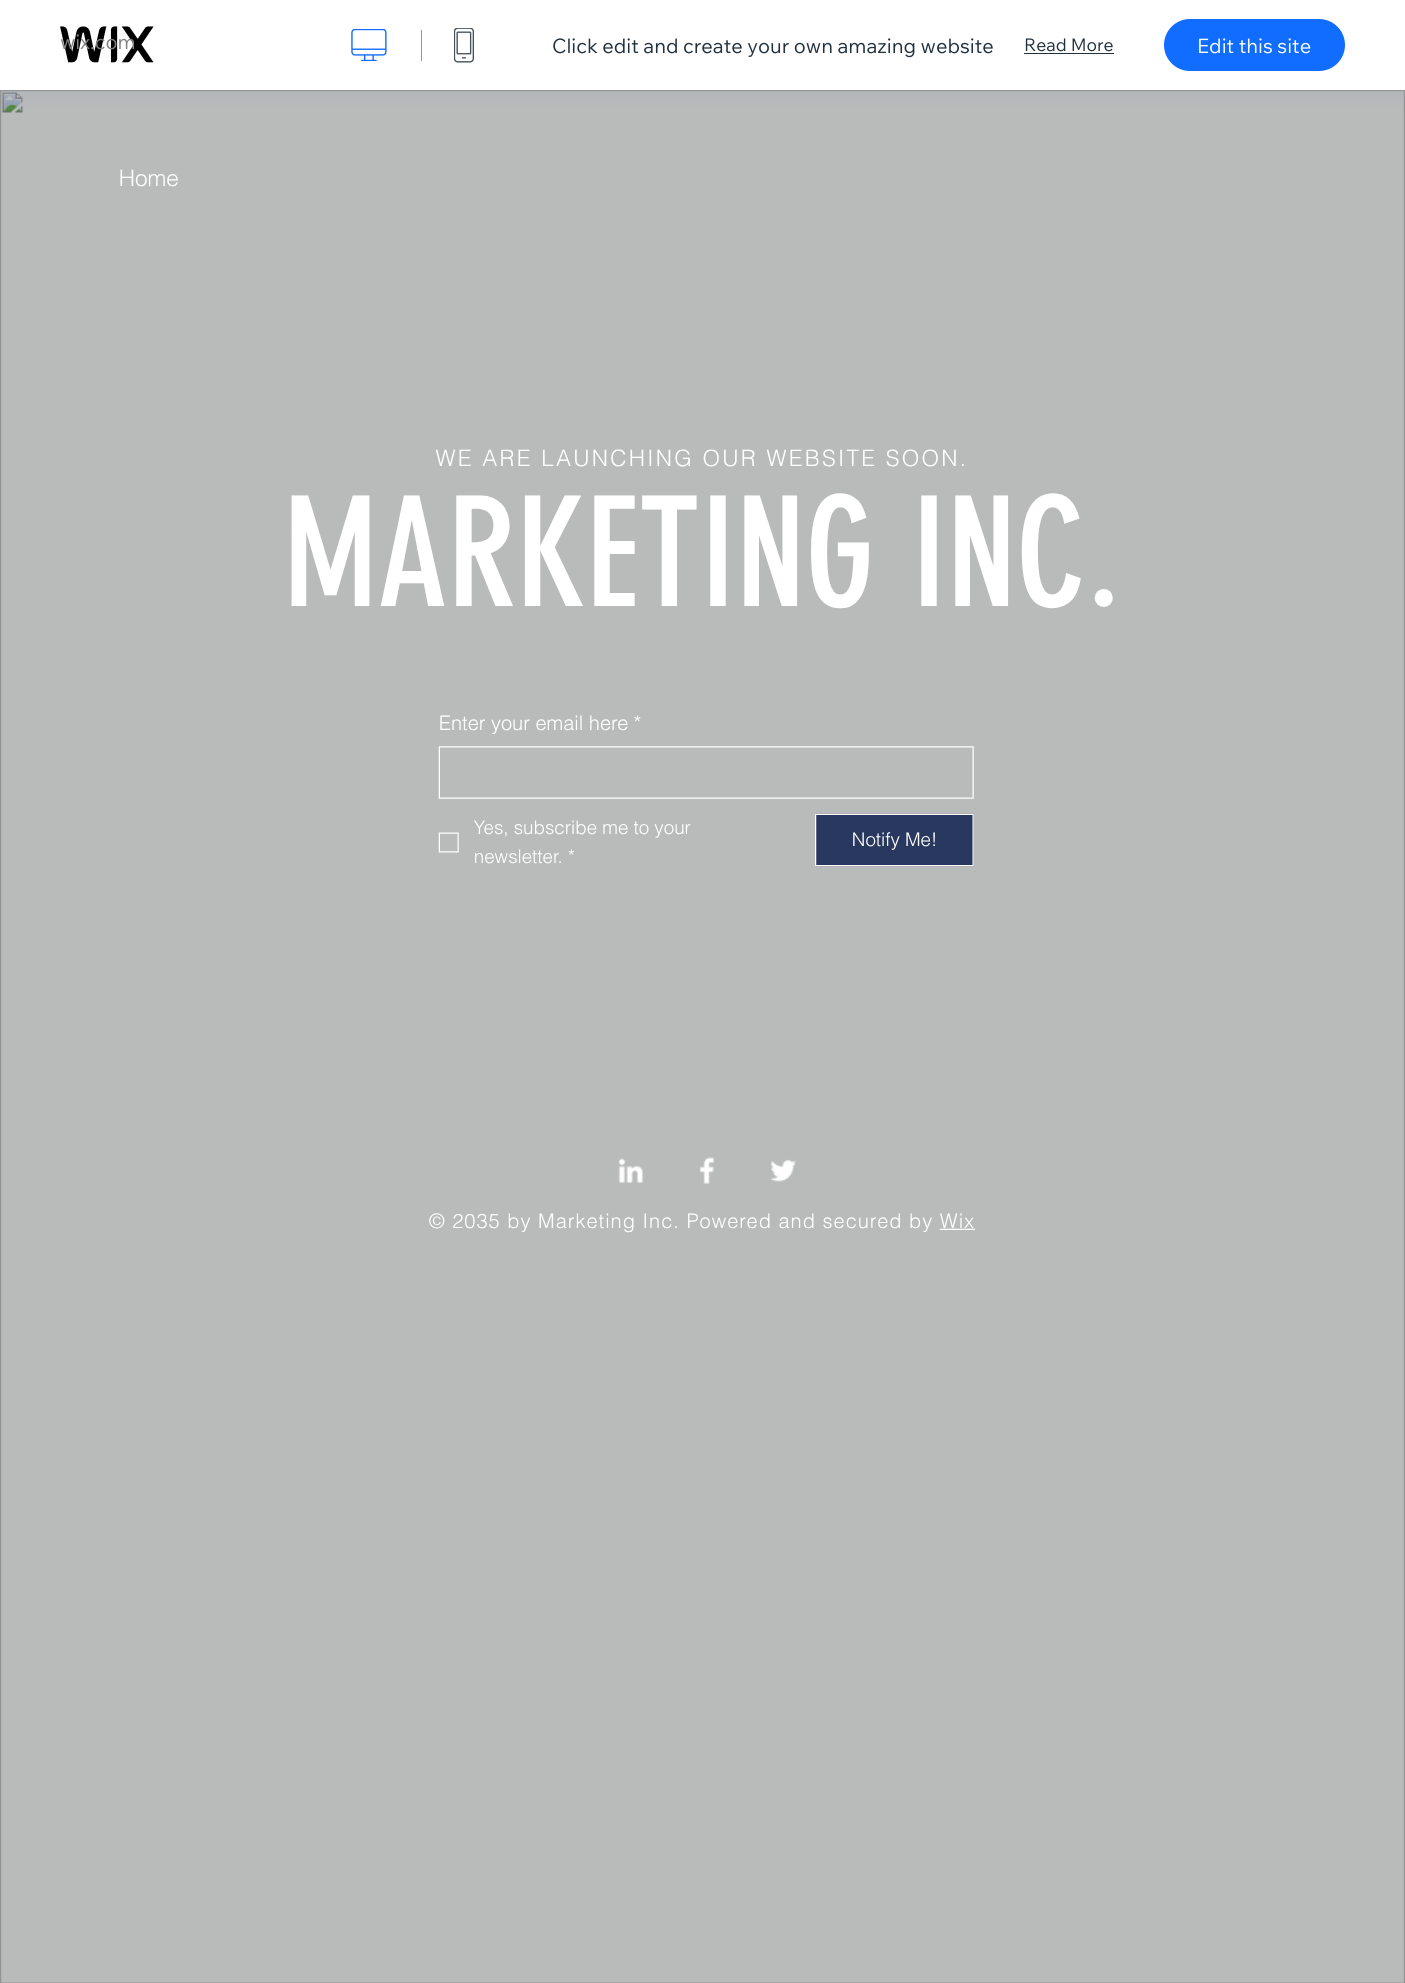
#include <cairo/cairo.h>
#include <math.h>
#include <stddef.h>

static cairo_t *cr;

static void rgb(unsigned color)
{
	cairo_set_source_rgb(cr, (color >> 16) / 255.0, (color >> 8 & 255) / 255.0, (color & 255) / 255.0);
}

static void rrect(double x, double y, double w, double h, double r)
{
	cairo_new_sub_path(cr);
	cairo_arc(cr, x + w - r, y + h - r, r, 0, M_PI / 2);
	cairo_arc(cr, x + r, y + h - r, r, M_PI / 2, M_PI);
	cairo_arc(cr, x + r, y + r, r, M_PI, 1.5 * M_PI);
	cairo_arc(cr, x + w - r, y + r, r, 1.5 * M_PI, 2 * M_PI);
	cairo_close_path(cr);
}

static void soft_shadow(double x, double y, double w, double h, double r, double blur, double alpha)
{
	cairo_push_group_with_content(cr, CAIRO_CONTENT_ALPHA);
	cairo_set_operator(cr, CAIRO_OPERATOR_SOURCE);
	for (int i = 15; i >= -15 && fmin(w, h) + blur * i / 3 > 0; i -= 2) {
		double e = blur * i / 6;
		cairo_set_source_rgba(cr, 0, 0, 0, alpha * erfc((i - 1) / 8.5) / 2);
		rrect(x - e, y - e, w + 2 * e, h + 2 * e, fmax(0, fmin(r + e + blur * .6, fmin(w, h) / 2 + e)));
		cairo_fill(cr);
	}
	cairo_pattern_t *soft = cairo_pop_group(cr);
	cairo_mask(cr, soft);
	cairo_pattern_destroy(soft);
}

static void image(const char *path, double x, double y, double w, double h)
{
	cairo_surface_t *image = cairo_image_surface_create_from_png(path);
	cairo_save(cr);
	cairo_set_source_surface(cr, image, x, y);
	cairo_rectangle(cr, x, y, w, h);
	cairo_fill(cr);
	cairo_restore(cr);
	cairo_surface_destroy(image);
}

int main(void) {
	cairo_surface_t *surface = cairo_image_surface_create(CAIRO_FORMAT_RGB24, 1405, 1983);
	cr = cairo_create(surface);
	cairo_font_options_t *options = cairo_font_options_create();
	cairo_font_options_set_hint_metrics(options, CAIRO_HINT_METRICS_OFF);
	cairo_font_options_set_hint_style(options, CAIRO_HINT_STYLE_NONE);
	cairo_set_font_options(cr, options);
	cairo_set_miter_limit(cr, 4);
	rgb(0xf9fafa);
	cairo_paint(cr);
	image("img/4.png", 0, 90, 1405, 1893);
	rgb(0x81a2b6);
	soft_shadow(0, 3, 1405, 90, 0, 11, 0.2);
	rgb(0xffffff);
	cairo_rectangle(cr, 0, 0, 1405, 90);
	cairo_fill(cr);
	image("img/1.png", 60, 26, 94, 37);
	image("img/2.png", 351, 29, 36, 32);
	rgb(0x90989e);
	cairo_rectangle(cr, 421, 30, 1, 31);
	cairo_fill(cr);
	image("img/3.png", 454, 28, 20, 35);
	rgb(0x20303c);
	cairo_rectangle(cr, 1024, 53, 90, 1);
	cairo_fill(cr);
	rgb(0x116dff);
	rrect(1164, 19, 181, 52, 26);
	cairo_fill(cr);
	cairo_select_font_face(cr, "Wix Madefor Text", CAIRO_FONT_SLANT_NORMAL, CAIRO_FONT_WEIGHT_NORMAL);
	cairo_set_font_size(cr, 20);
	rgb(0x818181);
	cairo_move_to(cr, 60, 49);
	cairo_show_text(cr, "wix.com");
	rgb(0x20303c);
	cairo_move_to(cr, 552, 53);
	cairo_show_text(cr, "Click edit and create your own amazing website");
	cairo_set_font_size(cr, 17.5);
	cairo_move_to(cr, 1024, 51);
	cairo_show_text(cr, "Read More");
	cairo_set_font_size(cr, 20);
	rgb(0xffffff);
	cairo_move_to(cr, 1197, 53);
	cairo_show_text(cr, "Edit this site");
	cairo_surface_write_to_png(surface, "page.png");
	cairo_font_options_destroy(options);
	cairo_destroy(cr);
	cairo_surface_destroy(surface);
	return 0;
}
